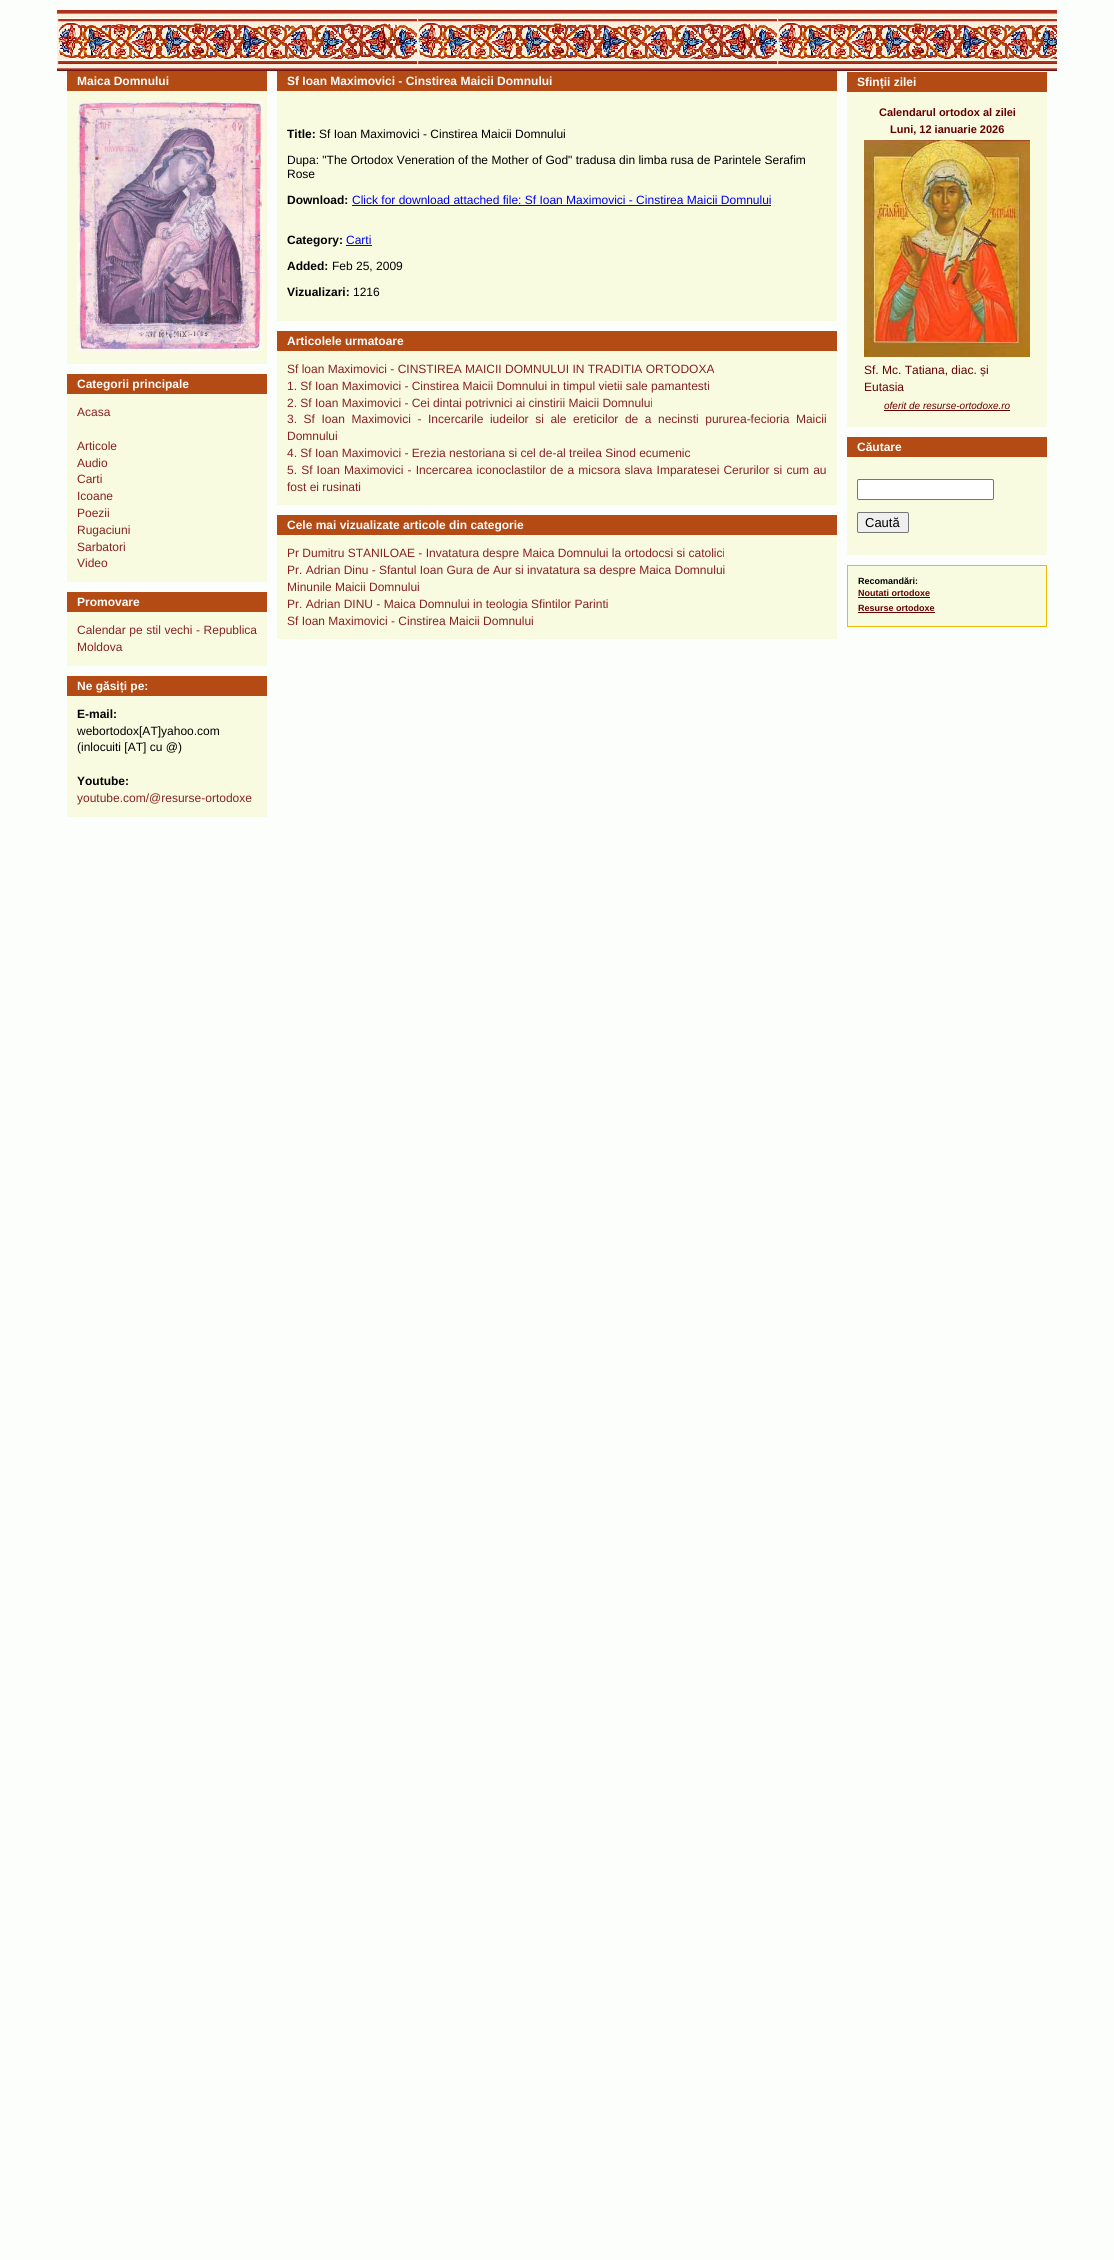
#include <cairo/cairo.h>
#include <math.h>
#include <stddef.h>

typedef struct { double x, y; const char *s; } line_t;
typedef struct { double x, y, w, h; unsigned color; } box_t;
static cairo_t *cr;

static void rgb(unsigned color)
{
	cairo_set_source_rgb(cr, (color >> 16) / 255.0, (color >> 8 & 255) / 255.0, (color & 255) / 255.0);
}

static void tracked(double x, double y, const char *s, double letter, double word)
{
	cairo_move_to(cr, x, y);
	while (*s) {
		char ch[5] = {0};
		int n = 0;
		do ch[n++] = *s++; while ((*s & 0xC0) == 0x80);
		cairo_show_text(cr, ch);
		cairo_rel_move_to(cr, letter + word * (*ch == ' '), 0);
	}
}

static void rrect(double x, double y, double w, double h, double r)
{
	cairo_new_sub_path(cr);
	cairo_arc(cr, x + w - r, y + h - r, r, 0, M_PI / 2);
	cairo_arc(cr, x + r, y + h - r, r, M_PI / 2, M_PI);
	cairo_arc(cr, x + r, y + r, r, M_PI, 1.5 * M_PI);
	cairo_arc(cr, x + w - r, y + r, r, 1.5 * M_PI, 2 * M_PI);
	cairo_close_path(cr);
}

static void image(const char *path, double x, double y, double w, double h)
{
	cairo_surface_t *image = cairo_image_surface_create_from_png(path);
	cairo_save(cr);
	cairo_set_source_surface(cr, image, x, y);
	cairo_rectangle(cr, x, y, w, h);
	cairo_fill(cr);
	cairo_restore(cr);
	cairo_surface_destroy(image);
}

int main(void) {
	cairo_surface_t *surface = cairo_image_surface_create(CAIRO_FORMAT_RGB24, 1114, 2260);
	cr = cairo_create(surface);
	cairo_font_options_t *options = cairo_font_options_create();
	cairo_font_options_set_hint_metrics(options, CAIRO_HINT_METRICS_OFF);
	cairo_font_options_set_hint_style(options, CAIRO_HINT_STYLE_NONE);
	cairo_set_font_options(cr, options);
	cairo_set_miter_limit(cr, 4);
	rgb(0xfcfefc);
	cairo_paint(cr);
	image("img/1.png", 57, 10, 1000, 60);
	{
		static const box_t items[] = {
			{57, 70, 1000, 1, 0x6c1313},
			{67, 91, 200, 273, 0xf9fbe0},
			{67, 71, 200, 20, 0xb44a14},
		};
		for (size_t i = 0; i < sizeof items / sizeof *items; i++) {
			rgb(items[i].color);
			cairo_rectangle(cr, items[i].x, items[i].y, items[i].w, items[i].h);
			cairo_fill(cr);
		}
	}
	image("img/2.png", 77, 101, 185, 250);
	{
		static const box_t items[] = {
			{67, 394, 200, 188, 0xf9fbe0},
			{67, 374, 200, 20, 0xb44a14},
			{67, 612, 200, 54, 0xf9fbe0},
			{67, 592, 200, 20, 0xb44a14},
			{67, 696, 200, 121, 0xf9fbe0},
			{67, 676, 200, 20, 0xb44a14},
			{277, 91, 560, 230, 0xf9fbe0},
			{277, 71, 560, 20, 0xb44a14},
			{352, 205, 419, 1, 0x0000ee},
			{346, 245, 26, 1, 0x0000ee},
			{277, 351, 560, 154, 0xf9fbe0},
			{277, 331, 560, 20, 0xb44a14},
			{277, 535, 560, 104, 0xf9fbe0},
			{277, 515, 560, 20, 0xb44a14},
			{847, 92, 200, 335, 0xf9fbe0},
			{847, 72, 200, 20, 0xb44a14},
		};
		for (size_t i = 0; i < sizeof items / sizeof *items; i++) {
			rgb(items[i].color);
			cairo_rectangle(cr, items[i].x, items[i].y, items[i].w, items[i].h);
			cairo_fill(cr);
		}
	}
	image("img/3.png", 864, 140, 166, 217);
	{
		static const box_t items[] = {
			{884, 410, 126, 1, 0x650000},
			{847, 457, 200, 98, 0xf9fbe0},
			{847, 437, 200, 20, 0xb44a14},
		};
		for (size_t i = 0; i < sizeof items / sizeof *items; i++) {
			rgb(items[i].color);
			cairo_rectangle(cr, items[i].x, items[i].y, items[i].w, items[i].h);
			cairo_fill(cr);
		}
	}
	rgb(0xffffff);
	rrect(857.5, 479.5, 136, 20, 1.5);
	cairo_fill_preserve(cr);
	rgb(0x767676);
	cairo_set_line_width(cr, 1);
	cairo_stroke(cr);
	rgb(0xefefef);
	rrect(857.5, 512.5, 51, 20, 1.5);
	cairo_fill_preserve(cr);
	rgb(0x767676);
	cairo_stroke(cr);
	rgb(0xf9fbe0);
	cairo_rectangle(cr, 847.5, 565.5, 199, 61);
	cairo_fill_preserve(cr);
	rgb(0xeeba04);
	cairo_stroke(cr);
	rgb(0x650000);
	cairo_rectangle(cr, 858, 597, 72, 1);
	cairo_fill(cr);
	cairo_rectangle(cr, 858, 612, 77, 1);
	cairo_fill(cr);
	cairo_select_font_face(cr, "Liberation Sans", CAIRO_FONT_SLANT_NORMAL, CAIRO_FONT_WEIGHT_BOLD);
	cairo_set_font_size(cr, 12);
	rgb(0xffffff);
	cairo_move_to(cr, 77, 85);
	cairo_show_text(cr, "Maica Domnului");
	cairo_move_to(cr, 77, 388);
	cairo_show_text(cr, "Categorii principale");
	cairo_select_font_face(cr, "Liberation Sans", CAIRO_FONT_SLANT_NORMAL, CAIRO_FONT_WEIGHT_NORMAL);
	rgb(0x882222);
	{
		static const line_t items[] = {
			{77, 416, "Acasa"},
			{77, 450, "Articole"},
			{77, 467, "Audio"},
			{77, 483, "Carti"},
			{77, 500, "Icoane"},
			{77, 517, "Poezii"},
			{77, 534, "Rugaciuni"},
			{77, 551, "Sarbatori"},
			{77, 567, "Video"},
		};
		for (size_t i = 0; i < sizeof items / sizeof *items; i++) {
			cairo_move_to(cr, items[i].x, items[i].y);
			cairo_show_text(cr, items[i].s);
		}
	}
	cairo_select_font_face(cr, "Liberation Sans", CAIRO_FONT_SLANT_NORMAL, CAIRO_FONT_WEIGHT_BOLD);
	rgb(0xffffff);
	cairo_move_to(cr, 77, 606);
	cairo_show_text(cr, "Promovare");
	cairo_select_font_face(cr, "Liberation Sans", CAIRO_FONT_SLANT_NORMAL, CAIRO_FONT_WEIGHT_NORMAL);
	rgb(0x882222);
	tracked(77, 634, "Calendar pe stil vechi - Republica", 0, 0.25);
	cairo_move_to(cr, 77, 651);
	cairo_show_text(cr, "Moldova");
	cairo_select_font_face(cr, "Liberation Sans", CAIRO_FONT_SLANT_NORMAL, CAIRO_FONT_WEIGHT_BOLD);
	rgb(0xffffff);
	cairo_move_to(cr, 77, 690);
	cairo_show_text(cr, "Ne găsiți pe:");
	rgb(0x000000);
	cairo_move_to(cr, 77, 718);
	cairo_show_text(cr, "E-mail:");
	cairo_select_font_face(cr, "Liberation Sans", CAIRO_FONT_SLANT_NORMAL, CAIRO_FONT_WEIGHT_NORMAL);
	cairo_move_to(cr, 77, 735);
	cairo_show_text(cr, "webortodox[AT]yahoo.com");
	cairo_move_to(cr, 77, 751);
	cairo_show_text(cr, "(inlocuiti [AT] cu @)");
	cairo_select_font_face(cr, "Liberation Sans", CAIRO_FONT_SLANT_NORMAL, CAIRO_FONT_WEIGHT_BOLD);
	cairo_move_to(cr, 77, 785);
	cairo_show_text(cr, "Youtube:");
	cairo_select_font_face(cr, "Liberation Sans", CAIRO_FONT_SLANT_NORMAL, CAIRO_FONT_WEIGHT_NORMAL);
	rgb(0x882222);
	cairo_move_to(cr, 77, 802);
	cairo_show_text(cr, "youtube.com/@resurse-ortodoxe");
	cairo_select_font_face(cr, "Liberation Sans", CAIRO_FONT_SLANT_NORMAL, CAIRO_FONT_WEIGHT_BOLD);
	rgb(0xffffff);
	cairo_move_to(cr, 287, 85);
	cairo_show_text(cr, "Sf Ioan Maximovici - Cinstirea Maicii Domnului");
	rgb(0x000000);
	cairo_move_to(cr, 287, 138);
	cairo_show_text(cr, "Title:");
	cairo_select_font_face(cr, "Liberation Sans", CAIRO_FONT_SLANT_NORMAL, CAIRO_FONT_WEIGHT_NORMAL);
	{
		static const line_t items[] = {
			{319, 138, "Sf Ioan Maximovici - Cinstirea Maicii Domnului"},
			{287, 164, "Dupa: \"The Ortodox Veneration of the Mother of God\" tradusa din limba rusa de Parintele Serafim"},
			{287, 178, "Rose"},
		};
		for (size_t i = 0; i < sizeof items / sizeof *items; i++) {
			cairo_move_to(cr, items[i].x, items[i].y);
			cairo_show_text(cr, items[i].s);
		}
	}
	cairo_select_font_face(cr, "Liberation Sans", CAIRO_FONT_SLANT_NORMAL, CAIRO_FONT_WEIGHT_BOLD);
	cairo_move_to(cr, 287, 204);
	cairo_show_text(cr, "Download:");
	cairo_select_font_face(cr, "Liberation Sans", CAIRO_FONT_SLANT_NORMAL, CAIRO_FONT_WEIGHT_NORMAL);
	rgb(0x0000ee);
	cairo_move_to(cr, 352, 204);
	cairo_show_text(cr, "Click for download attached file: Sf Ioan Maximovici - Cinstirea Maicii Domnului");
	cairo_select_font_face(cr, "Liberation Sans", CAIRO_FONT_SLANT_NORMAL, CAIRO_FONT_WEIGHT_BOLD);
	rgb(0x000000);
	cairo_move_to(cr, 287, 244);
	cairo_show_text(cr, "Category:");
	cairo_select_font_face(cr, "Liberation Sans", CAIRO_FONT_SLANT_NORMAL, CAIRO_FONT_WEIGHT_NORMAL);
	rgb(0x0000ee);
	cairo_move_to(cr, 346, 244);
	cairo_show_text(cr, "Carti");
	cairo_select_font_face(cr, "Liberation Sans", CAIRO_FONT_SLANT_NORMAL, CAIRO_FONT_WEIGHT_BOLD);
	rgb(0x000000);
	cairo_move_to(cr, 287, 270);
	cairo_show_text(cr, "Added:");
	cairo_select_font_face(cr, "Liberation Sans", CAIRO_FONT_SLANT_NORMAL, CAIRO_FONT_WEIGHT_NORMAL);
	cairo_move_to(cr, 332, 270);
	cairo_show_text(cr, "Feb 25, 2009");
	cairo_select_font_face(cr, "Liberation Sans", CAIRO_FONT_SLANT_NORMAL, CAIRO_FONT_WEIGHT_BOLD);
	cairo_move_to(cr, 287, 296);
	cairo_show_text(cr, "Vizualizari:");
	cairo_select_font_face(cr, "Liberation Sans", CAIRO_FONT_SLANT_NORMAL, CAIRO_FONT_WEIGHT_NORMAL);
	cairo_move_to(cr, 353, 296);
	cairo_show_text(cr, "1216");
	cairo_select_font_face(cr, "Liberation Sans", CAIRO_FONT_SLANT_NORMAL, CAIRO_FONT_WEIGHT_BOLD);
	rgb(0xffffff);
	cairo_move_to(cr, 287, 345);
	cairo_show_text(cr, "Articolele urmatoare");
	cairo_select_font_face(cr, "Liberation Sans", CAIRO_FONT_SLANT_NORMAL, CAIRO_FONT_WEIGHT_NORMAL);
	rgb(0x882222);
	{
		static const line_t items[] = {
			{287, 373, "Sf loan Maximovici - CINSTIREA MAICII DOMNULUI IN TRADITIA ORTODOXA"},
			{287, 390, "1. Sf Ioan Maximovici - Cinstirea Maicii Domnului in timpul vietii sale pamantesti"},
			{287, 407, "2. Sf Ioan Maximovici - Cei dintai potrivnici ai cinstirii Maicii Domnului"},
		};
		for (size_t i = 0; i < sizeof items / sizeof *items; i++) {
			cairo_move_to(cr, items[i].x, items[i].y);
			cairo_show_text(cr, items[i].s);
		}
	}
	tracked(287, 423, "3. Sf Ioan Maximovici - Incercarile iudeilor si ale ereticilor de a", 0, 3.25);
	tracked(658, 423, "necinsti pururea-fecioria Maicii", 0, 3.25);
	cairo_move_to(cr, 287, 440);
	cairo_show_text(cr, "Domnului");
	cairo_move_to(cr, 287, 457);
	cairo_show_text(cr, "4. Sf Ioan Maximovici - Erezia nestoriana si cel de-al treilea Sinod ecumenic");
	tracked(287, 474, "5. Sf Ioan Maximovici - Incercarea iconoclastilor de a micsora slava Imparatesei Cerurilor si cum au", 0, 0.8);
	cairo_move_to(cr, 287, 491);
	cairo_show_text(cr, "fost ei rusinati");
	cairo_select_font_face(cr, "Liberation Sans", CAIRO_FONT_SLANT_NORMAL, CAIRO_FONT_WEIGHT_BOLD);
	rgb(0xffffff);
	cairo_move_to(cr, 287, 529);
	cairo_show_text(cr, "Cele mai vizualizate articole din categorie");
	cairo_select_font_face(cr, "Liberation Sans", CAIRO_FONT_SLANT_NORMAL, CAIRO_FONT_WEIGHT_NORMAL);
	rgb(0x882222);
	{
		static const line_t items[] = {
			{287, 557, "Pr Dumitru STANILOAE - Invatatura despre Maica Domnului la ortodocsi si catolici"},
			{287, 574, "Pr. Adrian Dinu - Sfantul Ioan Gura de Aur si invatatura sa despre Maica Domnului"},
			{287, 591, "Minunile Maicii Domnului"},
			{287, 608, "Pr. Adrian DINU - Maica Domnului in teologia Sfintilor Parinti"},
			{287, 625, "Sf Ioan Maximovici - Cinstirea Maicii Domnului"},
		};
		for (size_t i = 0; i < sizeof items / sizeof *items; i++) {
			cairo_move_to(cr, items[i].x, items[i].y);
			cairo_show_text(cr, items[i].s);
		}
	}
	cairo_select_font_face(cr, "Liberation Sans", CAIRO_FONT_SLANT_NORMAL, CAIRO_FONT_WEIGHT_BOLD);
	rgb(0xffffff);
	cairo_move_to(cr, 857, 86);
	cairo_show_text(cr, "Sfinții zilei");
	cairo_set_font_size(cr, 11);
	rgb(0x650000);
	cairo_move_to(cr, 879, 116);
	cairo_show_text(cr, "Calendarul ortodox al zilei");
	cairo_move_to(cr, 890, 133);
	cairo_show_text(cr, "Luni, 12 ianuarie 2026");
	cairo_select_font_face(cr, "Liberation Sans", CAIRO_FONT_SLANT_NORMAL, CAIRO_FONT_WEIGHT_NORMAL);
	cairo_set_font_size(cr, 12);
	cairo_move_to(cr, 864, 374);
	cairo_show_text(cr, "Sf. Mc. Tatiana, diac. și");
	cairo_move_to(cr, 864, 391);
	cairo_show_text(cr, "Eutasia");
	cairo_select_font_face(cr, "Liberation Sans", CAIRO_FONT_SLANT_ITALIC, CAIRO_FONT_WEIGHT_NORMAL);
	cairo_set_font_size(cr, 10);
	cairo_move_to(cr, 884, 409);
	cairo_show_text(cr, "oferit de resurse-ortodoxe.ro");
	cairo_select_font_face(cr, "Liberation Sans", CAIRO_FONT_SLANT_NORMAL, CAIRO_FONT_WEIGHT_BOLD);
	cairo_set_font_size(cr, 12);
	rgb(0xffffff);
	cairo_move_to(cr, 857, 451);
	cairo_show_text(cr, "Căutare");
	cairo_select_font_face(cr, "Liberation Sans", CAIRO_FONT_SLANT_NORMAL, CAIRO_FONT_WEIGHT_NORMAL);
	cairo_set_font_size(cr, 13);
	rgb(0x000000);
	cairo_move_to(cr, 865, 527);
	cairo_show_text(cr, "Caută");
	cairo_select_font_face(cr, "Liberation Sans", CAIRO_FONT_SLANT_NORMAL, CAIRO_FONT_WEIGHT_BOLD);
	cairo_set_font_size(cr, 9);
	cairo_move_to(cr, 858, 584);
	cairo_show_text(cr, "Recomandări:");
	rgb(0x650000);
	cairo_move_to(cr, 858, 596);
	cairo_show_text(cr, "Noutati ortodoxe");
	cairo_move_to(cr, 858, 611);
	cairo_show_text(cr, "Resurse ortodoxe");
	cairo_surface_write_to_png(surface, "page.png");
	cairo_font_options_destroy(options);
	cairo_destroy(cr);
	cairo_surface_destroy(surface);
	return 0;
}
